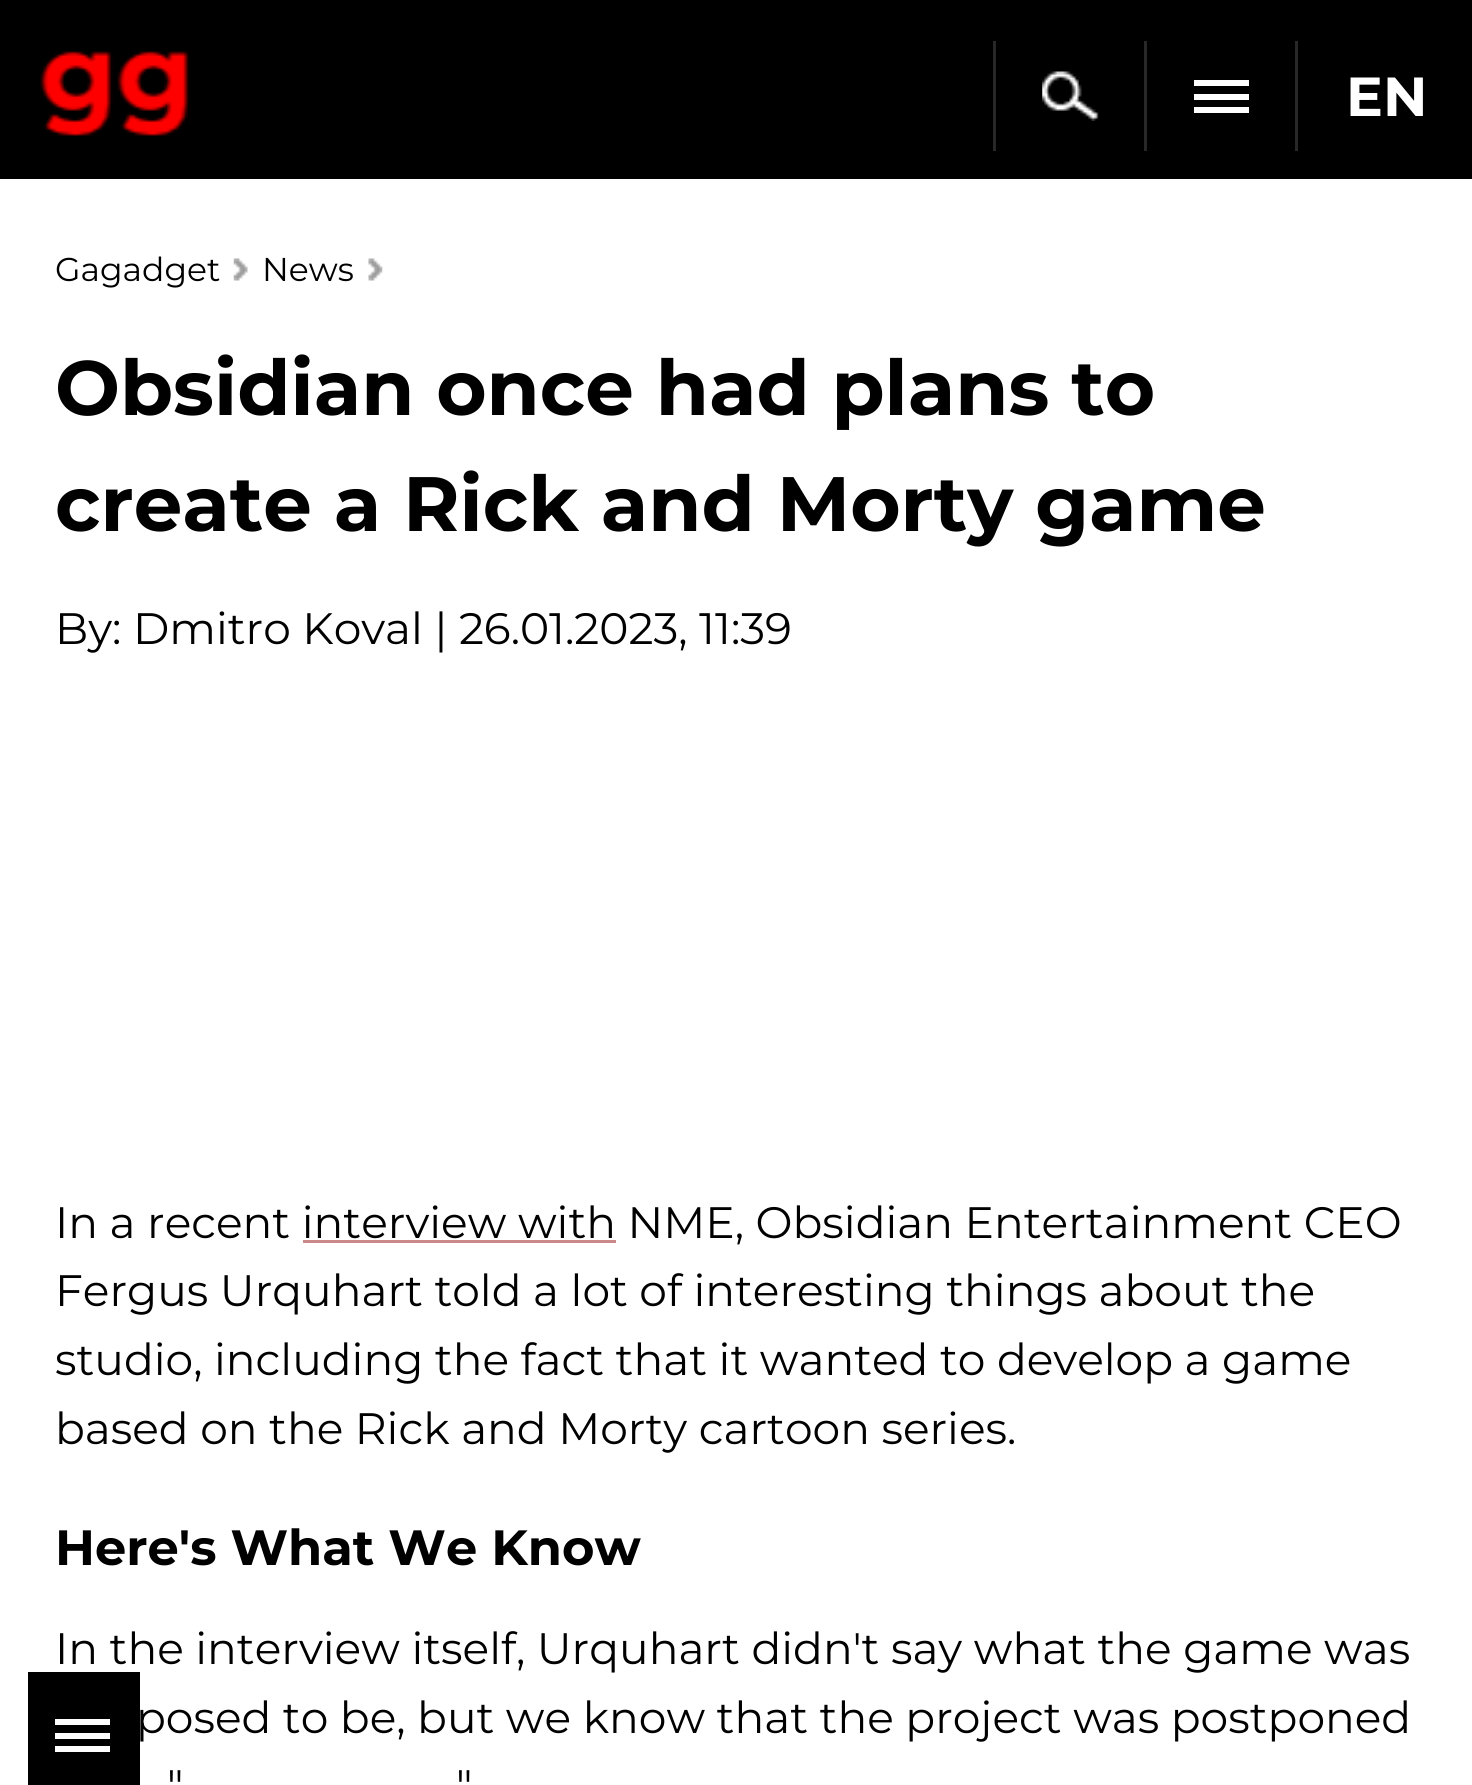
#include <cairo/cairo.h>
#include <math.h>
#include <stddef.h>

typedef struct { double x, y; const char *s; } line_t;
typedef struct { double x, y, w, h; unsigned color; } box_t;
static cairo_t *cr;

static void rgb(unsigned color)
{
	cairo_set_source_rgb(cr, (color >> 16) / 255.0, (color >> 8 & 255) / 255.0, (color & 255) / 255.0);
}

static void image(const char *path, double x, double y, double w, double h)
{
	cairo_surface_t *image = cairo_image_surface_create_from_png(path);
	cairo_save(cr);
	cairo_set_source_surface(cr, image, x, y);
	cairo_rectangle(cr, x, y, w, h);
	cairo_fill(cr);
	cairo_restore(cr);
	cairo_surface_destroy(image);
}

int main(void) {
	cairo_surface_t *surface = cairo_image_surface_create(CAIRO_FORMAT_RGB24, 1472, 1785);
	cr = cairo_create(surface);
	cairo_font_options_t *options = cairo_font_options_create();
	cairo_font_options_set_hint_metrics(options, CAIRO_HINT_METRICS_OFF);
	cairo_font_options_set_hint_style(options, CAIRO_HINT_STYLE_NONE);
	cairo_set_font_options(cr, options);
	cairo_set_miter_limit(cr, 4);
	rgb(0xffffff);
	cairo_paint(cr);
	rgb(0x000000);
	cairo_rectangle(cr, 0, 0, 1472, 179);
	cairo_fill(cr);
	image("img/1.png", 40, 51, 150, 85);
	rgb(0x282828);
	cairo_rectangle(cr, 993, 41, 3, 110);
	cairo_fill(cr);
	image("img/2.png", 1042, 71, 57, 50);
	{
		static const box_t items[] = {
			{1144, 41, 3, 110, 0x282828},
			{1194, 80, 55, 6, 0xffffff},
			{1194, 94, 55, 6, 0xffffff},
			{1194, 107, 55, 6, 0xffffff},
			{1295, 41, 3, 110, 0x282828},
		};
		for (size_t i = 0; i < sizeof items / sizeof *items; i++) {
			rgb(items[i].color);
			cairo_rectangle(cr, items[i].x, items[i].y, items[i].w, items[i].h);
			cairo_fill(cr);
		}
	}
	image("img/3.png", 233, 258, 15, 23);
	image("img/4.png", 368, 258, 15, 23);
	{
		static const box_t items[] = {
			{28, 1672, 112, 113, 0x000000},
			{55, 1719, 55, 6, 0xffffff},
			{55, 1733, 55, 6, 0xffffff},
			{55, 1746, 55, 6, 0xffffff},
		};
		for (size_t i = 0; i < sizeof items / sizeof *items; i++) {
			rgb(items[i].color);
			cairo_rectangle(cr, items[i].x, items[i].y, items[i].w, items[i].h);
			cairo_fill(cr);
		}
	}
	cairo_select_font_face(cr, "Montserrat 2 Thin", CAIRO_FONT_SLANT_NORMAL, CAIRO_FONT_WEIGHT_NORMAL);
	cairo_set_font_size(cr, 55);
	cairo_move_to(cr, 1346, 116);
	cairo_show_text(cr, "EN");
	cairo_select_font_face(cr, "Montserrat Thin", CAIRO_FONT_SLANT_NORMAL, CAIRO_FONT_WEIGHT_NORMAL);
	cairo_set_font_size(cr, 33);
	rgb(0x000000);
	cairo_move_to(cr, 55, 281);
	cairo_show_text(cr, "Gagadget");
	cairo_move_to(cr, 262, 281);
	cairo_show_text(cr, "News");
	cairo_select_font_face(cr, "Montserrat 2 Thin", CAIRO_FONT_SLANT_NORMAL, CAIRO_FONT_WEIGHT_NORMAL);
	cairo_set_font_size(cr, 77);
	cairo_move_to(cr, 55, 415);
	cairo_show_text(cr, "Obsidian once had plans to");
	cairo_move_to(cr, 55, 531);
	cairo_show_text(cr, "create a Rick and Morty game");
	cairo_select_font_face(cr, "Montserrat Thin", CAIRO_FONT_SLANT_NORMAL, CAIRO_FONT_WEIGHT_NORMAL);
	cairo_set_font_size(cr, 44);
	cairo_move_to(cr, 55, 644);
	cairo_show_text(cr, "By: Dmitro Koval | 26.01.2023, 11:39");
	cairo_move_to(cr, 55, 1238);
	cairo_show_text(cr, "In a recent interview with NME, Obsidian Entertainment CEO");
	rgb(0xcc8989);
	cairo_rectangle(cr, 303, 1240, 313, 3);
	cairo_fill(cr);
	rgb(0x000000);
	{
		static const line_t items[] = {
			{55, 1306, "Fergus Urquhart told a lot of interesting things about the"},
			{55, 1375, "studio, including the fact that it wanted to develop a game"},
			{55, 1444, "based on the Rick and Morty cartoon series."},
		};
		for (size_t i = 0; i < sizeof items / sizeof *items; i++) {
			cairo_move_to(cr, items[i].x, items[i].y);
			cairo_show_text(cr, items[i].s);
		}
	}
	cairo_select_font_face(cr, "Montserrat 2 Thin", CAIRO_FONT_SLANT_NORMAL, CAIRO_FONT_WEIGHT_NORMAL);
	cairo_set_font_size(cr, 49.5);
	cairo_move_to(cr, 55, 1565);
	cairo_show_text(cr, "Here's What We Know");
	cairo_select_font_face(cr, "Montserrat Thin", CAIRO_FONT_SLANT_NORMAL, CAIRO_FONT_WEIGHT_NORMAL);
	cairo_set_font_size(cr, 44);
	{
		static const line_t items[] = {
			{55, 1664, "In the interview itself, Urquhart didn't say what the game was"},
			{136, 1733, "posed to be, but we know that the project was postponed"},
			{167, 1801, "\""},
			{456, 1801, "\""},
		};
		for (size_t i = 0; i < sizeof items / sizeof *items; i++) {
			cairo_move_to(cr, items[i].x, items[i].y);
			cairo_show_text(cr, items[i].s);
		}
	}
	cairo_surface_write_to_png(surface, "page.png");
	cairo_font_options_destroy(options);
	cairo_destroy(cr);
	cairo_surface_destroy(surface);
	return 0;
}
